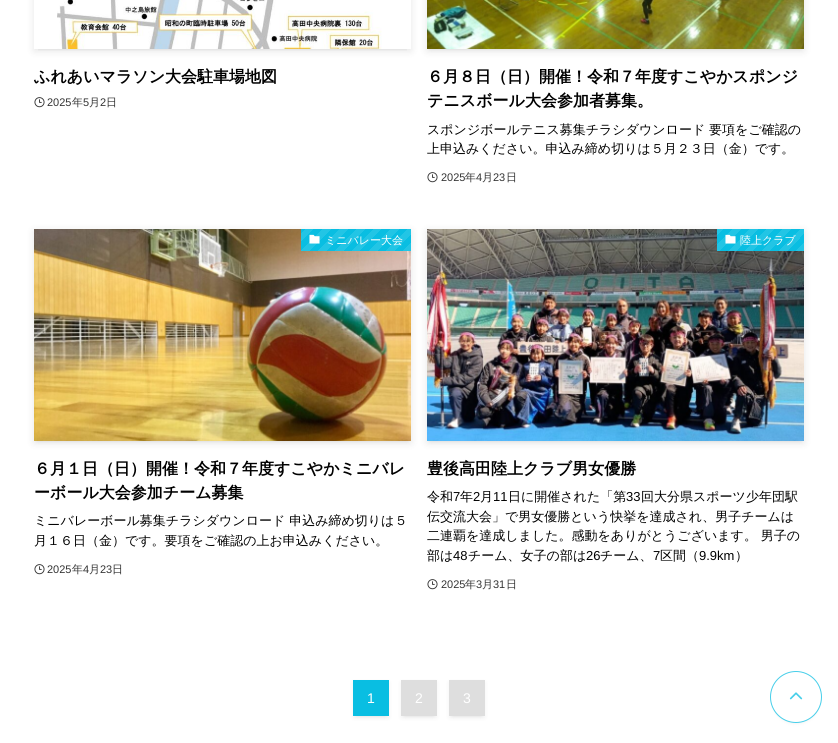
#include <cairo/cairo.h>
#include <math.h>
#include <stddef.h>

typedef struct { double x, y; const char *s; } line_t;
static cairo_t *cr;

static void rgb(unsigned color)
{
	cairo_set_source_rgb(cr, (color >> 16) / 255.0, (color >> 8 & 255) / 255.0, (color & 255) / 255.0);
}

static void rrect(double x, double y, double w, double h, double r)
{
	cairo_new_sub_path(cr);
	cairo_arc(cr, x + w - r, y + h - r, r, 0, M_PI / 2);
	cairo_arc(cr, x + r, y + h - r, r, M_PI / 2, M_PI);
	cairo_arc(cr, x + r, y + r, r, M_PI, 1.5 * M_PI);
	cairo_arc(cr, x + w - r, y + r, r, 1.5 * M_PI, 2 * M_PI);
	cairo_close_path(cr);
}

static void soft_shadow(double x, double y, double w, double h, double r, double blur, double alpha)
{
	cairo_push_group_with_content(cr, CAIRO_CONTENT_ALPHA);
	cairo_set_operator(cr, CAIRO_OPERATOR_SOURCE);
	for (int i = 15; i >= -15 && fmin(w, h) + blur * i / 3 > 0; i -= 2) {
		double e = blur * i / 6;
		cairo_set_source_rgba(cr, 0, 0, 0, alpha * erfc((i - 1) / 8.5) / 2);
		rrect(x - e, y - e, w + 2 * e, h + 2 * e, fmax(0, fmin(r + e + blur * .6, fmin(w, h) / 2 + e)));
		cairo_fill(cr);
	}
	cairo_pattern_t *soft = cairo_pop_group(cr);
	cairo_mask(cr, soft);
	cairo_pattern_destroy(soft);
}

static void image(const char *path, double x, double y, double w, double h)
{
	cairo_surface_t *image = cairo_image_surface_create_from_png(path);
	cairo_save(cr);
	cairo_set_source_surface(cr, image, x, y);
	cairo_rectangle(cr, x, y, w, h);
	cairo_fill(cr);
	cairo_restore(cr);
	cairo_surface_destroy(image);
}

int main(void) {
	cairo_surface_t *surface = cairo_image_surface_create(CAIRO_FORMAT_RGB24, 838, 743);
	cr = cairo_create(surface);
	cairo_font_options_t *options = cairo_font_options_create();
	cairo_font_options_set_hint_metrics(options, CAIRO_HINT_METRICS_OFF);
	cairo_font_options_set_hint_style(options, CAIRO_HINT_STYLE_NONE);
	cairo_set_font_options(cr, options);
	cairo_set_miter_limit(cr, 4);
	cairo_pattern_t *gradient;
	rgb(0xffffff);
	cairo_paint(cr);
	cairo_save(cr);
	cairo_rectangle(cr, 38, 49, 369, 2);
	cairo_clip(cr);
	rgb(0x000000);
	soft_shadow(38, -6, 369, 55, 0, 2, 0.1);
	cairo_restore(cr);
	cairo_save(cr);
	cairo_set_fill_rule(cr, CAIRO_FILL_RULE_EVEN_ODD);
	cairo_new_path(cr);
	cairo_move_to(cr, 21, 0);
	cairo_line_to(cr, 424, 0);
	cairo_line_to(cr, 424, 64);
	cairo_line_to(cr, 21, 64);
	cairo_close_path(cr);
	cairo_move_to(cr, 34, -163);
	cairo_line_to(cr, 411, -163);
	cairo_line_to(cr, 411, 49);
	cairo_line_to(cr, 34, 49);
	cairo_close_path(cr);
	cairo_clip(cr);
	rgb(0x000000);
	soft_shadow(34, -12, 377, 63, 0, 4, 0.1);
	cairo_restore(cr);
	image("img/1.png", 57, 0, 325, 49);
	image("img/2.png", 34, 97, 11, 11);
	rgb(0x000000);
	soft_shadow(431, -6, 369, 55, 0, 2, 0.1);
	soft_shadow(427, -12, 377, 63, 0, 4, 0.1);
	image("img/3.png", 427, 0, 377, 49);
	image("img/2.png", 427, 172, 11, 11);
	soft_shadow(38, 237, 369, 204, 0, 2, 0.1);
	soft_shadow(34, 231, 377, 212, 0, 4, 0.1);
	image("img/4.png", 34, 229, 377, 212);
	gradient = cairo_pattern_create_linear(389, 273, 321, 205);
	cairo_pattern_add_color_stop_rgba(gradient, 0, 0.133, 0.773, 0.898, 1);
	cairo_pattern_add_color_stop_rgba(gradient, 0.06, 0.133, 0.773, 0.898, 1);
	cairo_pattern_add_color_stop_rgba(gradient, 0.06, 0.035, 0.745, 0.886, 1);
	cairo_pattern_add_color_stop_rgba(gradient, 0.12, 0.035, 0.745, 0.886, 1);
	cairo_pattern_add_color_stop_rgba(gradient, 0.12, 0.133, 0.773, 0.898, 1);
	cairo_pattern_add_color_stop_rgba(gradient, 0.19, 0.133, 0.773, 0.898, 1);
	cairo_pattern_add_color_stop_rgba(gradient, 0.19, 0.035, 0.745, 0.886, 1);
	cairo_pattern_add_color_stop_rgba(gradient, 0.25, 0.035, 0.745, 0.886, 1);
	cairo_pattern_add_color_stop_rgba(gradient, 0.25, 0.133, 0.773, 0.898, 1);
	cairo_pattern_add_color_stop_rgba(gradient, 0.31, 0.133, 0.773, 0.898, 1);
	cairo_pattern_add_color_stop_rgba(gradient, 0.31, 0.035, 0.745, 0.886, 1);
	cairo_pattern_add_color_stop_rgba(gradient, 0.38, 0.035, 0.745, 0.886, 1);
	cairo_pattern_add_color_stop_rgba(gradient, 0.38, 0.133, 0.773, 0.898, 1);
	cairo_pattern_add_color_stop_rgba(gradient, 0.44, 0.133, 0.773, 0.898, 1);
	cairo_pattern_add_color_stop_rgba(gradient, 0.44, 0.035, 0.745, 0.886, 1);
	cairo_pattern_add_color_stop_rgba(gradient, 0.5, 0.035, 0.745, 0.886, 1);
	cairo_pattern_add_color_stop_rgba(gradient, 0.5, 0.133, 0.773, 0.898, 1);
	cairo_pattern_add_color_stop_rgba(gradient, 0.56, 0.133, 0.773, 0.898, 1);
	cairo_pattern_add_color_stop_rgba(gradient, 0.56, 0.035, 0.745, 0.886, 1);
	cairo_pattern_add_color_stop_rgba(gradient, 0.62, 0.035, 0.745, 0.886, 1);
	cairo_pattern_add_color_stop_rgba(gradient, 0.62, 0.133, 0.773, 0.898, 1);
	cairo_pattern_add_color_stop_rgba(gradient, 0.69, 0.133, 0.773, 0.898, 1);
	cairo_pattern_add_color_stop_rgba(gradient, 0.69, 0.035, 0.745, 0.886, 1);
	cairo_pattern_add_color_stop_rgba(gradient, 0.75, 0.035, 0.745, 0.886, 1);
	cairo_pattern_add_color_stop_rgba(gradient, 0.75, 0.133, 0.773, 0.898, 1);
	cairo_pattern_add_color_stop_rgba(gradient, 0.81, 0.133, 0.773, 0.898, 1);
	cairo_pattern_add_color_stop_rgba(gradient, 0.81, 0.035, 0.745, 0.886, 1);
	cairo_pattern_add_color_stop_rgba(gradient, 0.88, 0.035, 0.745, 0.886, 1);
	cairo_pattern_add_color_stop_rgba(gradient, 0.88, 0.133, 0.773, 0.898, 1);
	cairo_pattern_add_color_stop_rgba(gradient, 0.94, 0.133, 0.773, 0.898, 1);
	cairo_pattern_add_color_stop_rgba(gradient, 0.94, 0.035, 0.745, 0.886, 1);
	cairo_pattern_add_color_stop_rgba(gradient, 1, 0.035, 0.745, 0.886, 1);
	cairo_set_source(cr, gradient);
	cairo_pattern_destroy(gradient);
	cairo_rectangle(cr, 301, 229, 110, 22);
	cairo_fill(cr);
	image("img/5.png", 309, 234, 11, 10);
	image("img/2.png", 34, 564, 11, 11);
	rgb(0x000000);
	soft_shadow(431, 237, 369, 204, 0, 2, 0.1);
	soft_shadow(427, 231, 377, 212, 0, 4, 0.1);
	image("img/6.png", 427, 229, 377, 212);
	gradient = cairo_pattern_create_linear(788, 267, 728, 208);
	cairo_pattern_add_color_stop_rgba(gradient, 0, 0.133, 0.773, 0.898, 1);
	cairo_pattern_add_color_stop_rgba(gradient, 0.07, 0.133, 0.773, 0.898, 1);
	cairo_pattern_add_color_stop_rgba(gradient, 0.07, 0.035, 0.745, 0.886, 1);
	cairo_pattern_add_color_stop_rgba(gradient, 0.14, 0.035, 0.745, 0.886, 1);
	cairo_pattern_add_color_stop_rgba(gradient, 0.14, 0.133, 0.773, 0.898, 1);
	cairo_pattern_add_color_stop_rgba(gradient, 0.21, 0.133, 0.773, 0.898, 1);
	cairo_pattern_add_color_stop_rgba(gradient, 0.21, 0.035, 0.745, 0.886, 1);
	cairo_pattern_add_color_stop_rgba(gradient, 0.29, 0.035, 0.745, 0.886, 1);
	cairo_pattern_add_color_stop_rgba(gradient, 0.29, 0.133, 0.773, 0.898, 1);
	cairo_pattern_add_color_stop_rgba(gradient, 0.36, 0.133, 0.773, 0.898, 1);
	cairo_pattern_add_color_stop_rgba(gradient, 0.36, 0.035, 0.745, 0.886, 1);
	cairo_pattern_add_color_stop_rgba(gradient, 0.43, 0.035, 0.745, 0.886, 1);
	cairo_pattern_add_color_stop_rgba(gradient, 0.43, 0.133, 0.773, 0.898, 1);
	cairo_pattern_add_color_stop_rgba(gradient, 0.5, 0.133, 0.773, 0.898, 1);
	cairo_pattern_add_color_stop_rgba(gradient, 0.5, 0.035, 0.745, 0.886, 1);
	cairo_pattern_add_color_stop_rgba(gradient, 0.57, 0.035, 0.745, 0.886, 1);
	cairo_pattern_add_color_stop_rgba(gradient, 0.57, 0.133, 0.773, 0.898, 1);
	cairo_pattern_add_color_stop_rgba(gradient, 0.64, 0.133, 0.773, 0.898, 1);
	cairo_pattern_add_color_stop_rgba(gradient, 0.64, 0.035, 0.745, 0.886, 1);
	cairo_pattern_add_color_stop_rgba(gradient, 0.71, 0.035, 0.745, 0.886, 1);
	cairo_pattern_add_color_stop_rgba(gradient, 0.71, 0.133, 0.773, 0.898, 1);
	cairo_pattern_add_color_stop_rgba(gradient, 0.79, 0.133, 0.773, 0.898, 1);
	cairo_pattern_add_color_stop_rgba(gradient, 0.79, 0.035, 0.745, 0.886, 1);
	cairo_pattern_add_color_stop_rgba(gradient, 0.86, 0.035, 0.745, 0.886, 1);
	cairo_pattern_add_color_stop_rgba(gradient, 0.86, 0.133, 0.773, 0.898, 1);
	cairo_pattern_add_color_stop_rgba(gradient, 0.93, 0.133, 0.773, 0.898, 1);
	cairo_pattern_add_color_stop_rgba(gradient, 0.93, 0.035, 0.745, 0.886, 1);
	cairo_pattern_add_color_stop_rgba(gradient, 1, 0.035, 0.745, 0.886, 1);
	cairo_set_source(cr, gradient);
	cairo_pattern_destroy(gradient);
	cairo_rectangle(cr, 717, 229, 87, 22);
	cairo_fill(cr);
	image("img/7.png", 725, 234, 11, 10);
	image("img/2.png", 427, 579, 11, 11);
	rgb(0x000000);
	soft_shadow(357, 688, 28, 28, 0, 2, 0.1);
	soft_shadow(353, 682, 36, 36, 0, 2, 0.05);
	rgb(0x09bee2);
	cairo_rectangle(cr, 353, 680, 36, 36);
	cairo_fill(cr);
	rgb(0x000000);
	soft_shadow(405, 688, 28, 28, 0, 2, 0.1);
	soft_shadow(401, 682, 36, 36, 0, 2, 0.05);
	rgb(0xdedede);
	cairo_rectangle(cr, 401, 680, 36, 36);
	cairo_fill(cr);
	rgb(0x000000);
	soft_shadow(453, 688, 28, 28, 0, 2, 0.1);
	soft_shadow(449, 682, 36, 36, 0, 2, 0.05);
	rgb(0xdedede);
	cairo_rectangle(cr, 449, 680, 36, 36);
	cairo_fill(cr);
	rgb(0x404040);
	soft_shadow(774, 679, 44, 44, 22, 2, 0.1);
	rgb(0xffffff);
	cairo_arc(cr, 796, 697, 25.5, 0, 2 * M_PI);
	cairo_fill_preserve(cr);
	rgb(0x47cee9);
	cairo_set_line_width(cr, 1);
	cairo_stroke(cr);
	image("img/8.png", 789, 692, 14, 8);
	cairo_select_font_face(cr, "WenQuanYi Zen Hei", CAIRO_FONT_SLANT_NORMAL, CAIRO_FONT_WEIGHT_BOLD);
	cairo_set_font_size(cr, 16);
	rgb(0x000000);
	cairo_move_to(cr, 34, 82);
	cairo_show_text(cr, "ふれあいマラソン大会駐車場地図");
	cairo_select_font_face(cr, "Liberation Sans", CAIRO_FONT_SLANT_NORMAL, CAIRO_FONT_WEIGHT_NORMAL);
	cairo_set_font_size(cr, 11);
	rgb(0x333333);
	cairo_move_to(cr, 47, 106);
	cairo_show_text(cr, "2025");
	cairo_select_font_face(cr, "WenQuanYi Zen Hei Medium", CAIRO_FONT_SLANT_NORMAL, CAIRO_FONT_WEIGHT_NORMAL);
	cairo_move_to(cr, 72, 106);
	cairo_show_text(cr, "年");
	cairo_select_font_face(cr, "Liberation Sans", CAIRO_FONT_SLANT_NORMAL, CAIRO_FONT_WEIGHT_NORMAL);
	cairo_move_to(cr, 83, 106);
	cairo_show_text(cr, "5");
	cairo_select_font_face(cr, "WenQuanYi Zen Hei Medium", CAIRO_FONT_SLANT_NORMAL, CAIRO_FONT_WEIGHT_NORMAL);
	cairo_move_to(cr, 89, 106);
	cairo_show_text(cr, "月");
	cairo_select_font_face(cr, "Liberation Sans", CAIRO_FONT_SLANT_NORMAL, CAIRO_FONT_WEIGHT_NORMAL);
	cairo_move_to(cr, 100, 106);
	cairo_show_text(cr, "2");
	cairo_select_font_face(cr, "WenQuanYi Zen Hei Medium", CAIRO_FONT_SLANT_NORMAL, CAIRO_FONT_WEIGHT_NORMAL);
	cairo_move_to(cr, 106, 106);
	cairo_show_text(cr, "日");
	cairo_select_font_face(cr, "WenQuanYi Zen Hei", CAIRO_FONT_SLANT_NORMAL, CAIRO_FONT_WEIGHT_BOLD);
	cairo_set_font_size(cr, 16);
	rgb(0x000000);
	cairo_move_to(cr, 427, 82);
	cairo_show_text(cr, "６月８日（日）開催！令和７年度すこやかスポンジ");
	cairo_move_to(cr, 427, 106);
	cairo_show_text(cr, "テニスボール大会参加者募集。");
	cairo_select_font_face(cr, "WenQuanYi Zen Hei Medium", CAIRO_FONT_SLANT_NORMAL, CAIRO_FONT_WEIGHT_NORMAL);
	cairo_set_font_size(cr, 13);
	cairo_move_to(cr, 427, 134);
	cairo_show_text(cr, "スポンジボールテニス募集チラシダウンロード 要項をご確認の");
	cairo_move_to(cr, 427, 153);
	cairo_show_text(cr, "上申込みください。申込み締め切りは５月２３日（金）です。");
	cairo_select_font_face(cr, "Liberation Sans", CAIRO_FONT_SLANT_NORMAL, CAIRO_FONT_WEIGHT_NORMAL);
	cairo_set_font_size(cr, 11);
	rgb(0x333333);
	cairo_move_to(cr, 441, 181);
	cairo_show_text(cr, "2025");
	cairo_select_font_face(cr, "WenQuanYi Zen Hei Medium", CAIRO_FONT_SLANT_NORMAL, CAIRO_FONT_WEIGHT_NORMAL);
	cairo_move_to(cr, 465, 181);
	cairo_show_text(cr, "年");
	cairo_select_font_face(cr, "Liberation Sans", CAIRO_FONT_SLANT_NORMAL, CAIRO_FONT_WEIGHT_NORMAL);
	cairo_move_to(cr, 476, 181);
	cairo_show_text(cr, "4");
	cairo_select_font_face(cr, "WenQuanYi Zen Hei Medium", CAIRO_FONT_SLANT_NORMAL, CAIRO_FONT_WEIGHT_NORMAL);
	cairo_move_to(cr, 482, 181);
	cairo_show_text(cr, "月");
	cairo_select_font_face(cr, "Liberation Sans", CAIRO_FONT_SLANT_NORMAL, CAIRO_FONT_WEIGHT_NORMAL);
	cairo_move_to(cr, 493, 181);
	cairo_show_text(cr, "23");
	cairo_select_font_face(cr, "WenQuanYi Zen Hei Medium", CAIRO_FONT_SLANT_NORMAL, CAIRO_FONT_WEIGHT_NORMAL);
	cairo_move_to(cr, 506, 181);
	cairo_show_text(cr, "日");
	rgb(0xffffff);
	cairo_move_to(cr, 325, 244);
	cairo_show_text(cr, "ミニバレー大会");
	cairo_select_font_face(cr, "WenQuanYi Zen Hei", CAIRO_FONT_SLANT_NORMAL, CAIRO_FONT_WEIGHT_BOLD);
	cairo_set_font_size(cr, 16);
	rgb(0x000000);
	cairo_move_to(cr, 34, 474);
	cairo_show_text(cr, "６月１日（日）開催！令和７年度すこやかミニバレ");
	cairo_move_to(cr, 34, 498);
	cairo_show_text(cr, "ーボール大会参加チーム募集");
	cairo_select_font_face(cr, "WenQuanYi Zen Hei Medium", CAIRO_FONT_SLANT_NORMAL, CAIRO_FONT_WEIGHT_NORMAL);
	cairo_set_font_size(cr, 13);
	cairo_move_to(cr, 34, 525);
	cairo_show_text(cr, "ミニバレーボール募集チラシダウンロード 申込み締め切りは５");
	cairo_move_to(cr, 34, 545);
	cairo_show_text(cr, "月１６日（金）です。要項をご確認の上お申込みください。");
	cairo_select_font_face(cr, "Liberation Sans", CAIRO_FONT_SLANT_NORMAL, CAIRO_FONT_WEIGHT_NORMAL);
	cairo_set_font_size(cr, 11);
	rgb(0x333333);
	cairo_move_to(cr, 47, 573);
	cairo_show_text(cr, "2025");
	cairo_select_font_face(cr, "WenQuanYi Zen Hei Medium", CAIRO_FONT_SLANT_NORMAL, CAIRO_FONT_WEIGHT_NORMAL);
	cairo_move_to(cr, 72, 573);
	cairo_show_text(cr, "年");
	cairo_select_font_face(cr, "Liberation Sans", CAIRO_FONT_SLANT_NORMAL, CAIRO_FONT_WEIGHT_NORMAL);
	cairo_move_to(cr, 83, 573);
	cairo_show_text(cr, "4");
	cairo_select_font_face(cr, "WenQuanYi Zen Hei Medium", CAIRO_FONT_SLANT_NORMAL, CAIRO_FONT_WEIGHT_NORMAL);
	cairo_move_to(cr, 89, 573);
	cairo_show_text(cr, "月");
	cairo_select_font_face(cr, "Liberation Sans", CAIRO_FONT_SLANT_NORMAL, CAIRO_FONT_WEIGHT_NORMAL);
	cairo_move_to(cr, 100, 573);
	cairo_show_text(cr, "23");
	cairo_select_font_face(cr, "WenQuanYi Zen Hei Medium", CAIRO_FONT_SLANT_NORMAL, CAIRO_FONT_WEIGHT_NORMAL);
	cairo_move_to(cr, 112, 573);
	cairo_show_text(cr, "日");
	rgb(0xffffff);
	cairo_move_to(cr, 740, 244);
	cairo_show_text(cr, "陸上クラブ");
	cairo_select_font_face(cr, "WenQuanYi Zen Hei", CAIRO_FONT_SLANT_NORMAL, CAIRO_FONT_WEIGHT_BOLD);
	cairo_set_font_size(cr, 16);
	rgb(0x000000);
	cairo_move_to(cr, 427, 474);
	cairo_show_text(cr, "豊後高田陸上クラブ男女優勝");
	cairo_select_font_face(cr, "WenQuanYi Zen Hei Medium", CAIRO_FONT_SLANT_NORMAL, CAIRO_FONT_WEIGHT_NORMAL);
	cairo_set_font_size(cr, 13);
	cairo_move_to(cr, 427, 501);
	cairo_show_text(cr, "令和");
	cairo_select_font_face(cr, "Liberation Sans", CAIRO_FONT_SLANT_NORMAL, CAIRO_FONT_WEIGHT_NORMAL);
	cairo_move_to(cr, 453, 501);
	cairo_show_text(cr, "7");
	cairo_select_font_face(cr, "WenQuanYi Zen Hei Medium", CAIRO_FONT_SLANT_NORMAL, CAIRO_FONT_WEIGHT_NORMAL);
	cairo_move_to(cr, 460, 501);
	cairo_show_text(cr, "年");
	cairo_select_font_face(cr, "Liberation Sans", CAIRO_FONT_SLANT_NORMAL, CAIRO_FONT_WEIGHT_NORMAL);
	cairo_move_to(cr, 473, 501);
	cairo_show_text(cr, "2");
	cairo_select_font_face(cr, "WenQuanYi Zen Hei Medium", CAIRO_FONT_SLANT_NORMAL, CAIRO_FONT_WEIGHT_NORMAL);
	cairo_move_to(cr, 480, 501);
	cairo_show_text(cr, "月");
	cairo_select_font_face(cr, "Liberation Sans", CAIRO_FONT_SLANT_NORMAL, CAIRO_FONT_WEIGHT_NORMAL);
	cairo_move_to(cr, 493, 501);
	cairo_show_text(cr, "11");
	cairo_select_font_face(cr, "WenQuanYi Zen Hei Medium", CAIRO_FONT_SLANT_NORMAL, CAIRO_FONT_WEIGHT_NORMAL);
	cairo_move_to(cr, 508, 501);
	cairo_show_text(cr, "日に開催された「第");
	cairo_select_font_face(cr, "Liberation Sans", CAIRO_FONT_SLANT_NORMAL, CAIRO_FONT_WEIGHT_NORMAL);
	cairo_move_to(cr, 626, 501);
	cairo_show_text(cr, "33");
	cairo_select_font_face(cr, "WenQuanYi Zen Hei Medium", CAIRO_FONT_SLANT_NORMAL, CAIRO_FONT_WEIGHT_NORMAL);
	{
		static const line_t items[] = {
			{641, 501, "回大分県スポーツ少年団駅"},
			{427, 521, "伝交流大会」で男女優勝という快挙を達成され、男子チームは"},
			{427, 540, "二連覇を達成しました。感動をありがとうございます。 男子の"},
			{427, 560, "部は"},
		};
		for (size_t i = 0; i < sizeof items / sizeof *items; i++) {
			cairo_move_to(cr, items[i].x, items[i].y);
			cairo_show_text(cr, items[i].s);
		}
	}
	cairo_select_font_face(cr, "Liberation Sans", CAIRO_FONT_SLANT_NORMAL, CAIRO_FONT_WEIGHT_NORMAL);
	cairo_move_to(cr, 453, 560);
	cairo_show_text(cr, "48");
	cairo_select_font_face(cr, "WenQuanYi Zen Hei Medium", CAIRO_FONT_SLANT_NORMAL, CAIRO_FONT_WEIGHT_NORMAL);
	cairo_move_to(cr, 468, 560);
	cairo_show_text(cr, "チーム、女子の部は");
	cairo_select_font_face(cr, "Liberation Sans", CAIRO_FONT_SLANT_NORMAL, CAIRO_FONT_WEIGHT_NORMAL);
	cairo_move_to(cr, 586, 560);
	cairo_show_text(cr, "26");
	cairo_select_font_face(cr, "WenQuanYi Zen Hei Medium", CAIRO_FONT_SLANT_NORMAL, CAIRO_FONT_WEIGHT_NORMAL);
	cairo_move_to(cr, 600, 560);
	cairo_show_text(cr, "チーム、");
	cairo_select_font_face(cr, "Liberation Sans", CAIRO_FONT_SLANT_NORMAL, CAIRO_FONT_WEIGHT_NORMAL);
	cairo_move_to(cr, 653, 560);
	cairo_show_text(cr, "7");
	cairo_select_font_face(cr, "WenQuanYi Zen Hei Medium", CAIRO_FONT_SLANT_NORMAL, CAIRO_FONT_WEIGHT_NORMAL);
	cairo_move_to(cr, 660, 560);
	cairo_show_text(cr, "区間（");
	cairo_select_font_face(cr, "Liberation Sans", CAIRO_FONT_SLANT_NORMAL, CAIRO_FONT_WEIGHT_NORMAL);
	cairo_move_to(cr, 699, 560);
	cairo_show_text(cr, "9.9km");
	cairo_select_font_face(cr, "WenQuanYi Zen Hei Medium", CAIRO_FONT_SLANT_NORMAL, CAIRO_FONT_WEIGHT_NORMAL);
	cairo_move_to(cr, 735, 560);
	cairo_show_text(cr, "）");
	cairo_select_font_face(cr, "Liberation Sans", CAIRO_FONT_SLANT_NORMAL, CAIRO_FONT_WEIGHT_NORMAL);
	cairo_set_font_size(cr, 11);
	rgb(0x333333);
	cairo_move_to(cr, 441, 588);
	cairo_show_text(cr, "2025");
	cairo_select_font_face(cr, "WenQuanYi Zen Hei Medium", CAIRO_FONT_SLANT_NORMAL, CAIRO_FONT_WEIGHT_NORMAL);
	cairo_move_to(cr, 465, 588);
	cairo_show_text(cr, "年");
	cairo_select_font_face(cr, "Liberation Sans", CAIRO_FONT_SLANT_NORMAL, CAIRO_FONT_WEIGHT_NORMAL);
	cairo_move_to(cr, 476, 588);
	cairo_show_text(cr, "3");
	cairo_select_font_face(cr, "WenQuanYi Zen Hei Medium", CAIRO_FONT_SLANT_NORMAL, CAIRO_FONT_WEIGHT_NORMAL);
	cairo_move_to(cr, 482, 588);
	cairo_show_text(cr, "月");
	cairo_select_font_face(cr, "Liberation Sans", CAIRO_FONT_SLANT_NORMAL, CAIRO_FONT_WEIGHT_NORMAL);
	cairo_move_to(cr, 493, 588);
	cairo_show_text(cr, "31");
	cairo_select_font_face(cr, "WenQuanYi Zen Hei Medium", CAIRO_FONT_SLANT_NORMAL, CAIRO_FONT_WEIGHT_NORMAL);
	cairo_move_to(cr, 506, 588);
	cairo_show_text(cr, "日");
	cairo_select_font_face(cr, "Liberation Sans", CAIRO_FONT_SLANT_NORMAL, CAIRO_FONT_WEIGHT_NORMAL);
	cairo_set_font_size(cr, 14);
	rgb(0xffffff);
	{
		static const line_t items[] = {
			{367, 703, "1"},
			{415, 703, "2"},
			{463, 703, "3"},
		};
		for (size_t i = 0; i < sizeof items / sizeof *items; i++) {
			cairo_move_to(cr, items[i].x, items[i].y);
			cairo_show_text(cr, items[i].s);
		}
	}
	cairo_surface_write_to_png(surface, "page.png");
	cairo_font_options_destroy(options);
	cairo_destroy(cr);
	cairo_surface_destroy(surface);
	return 0;
}
